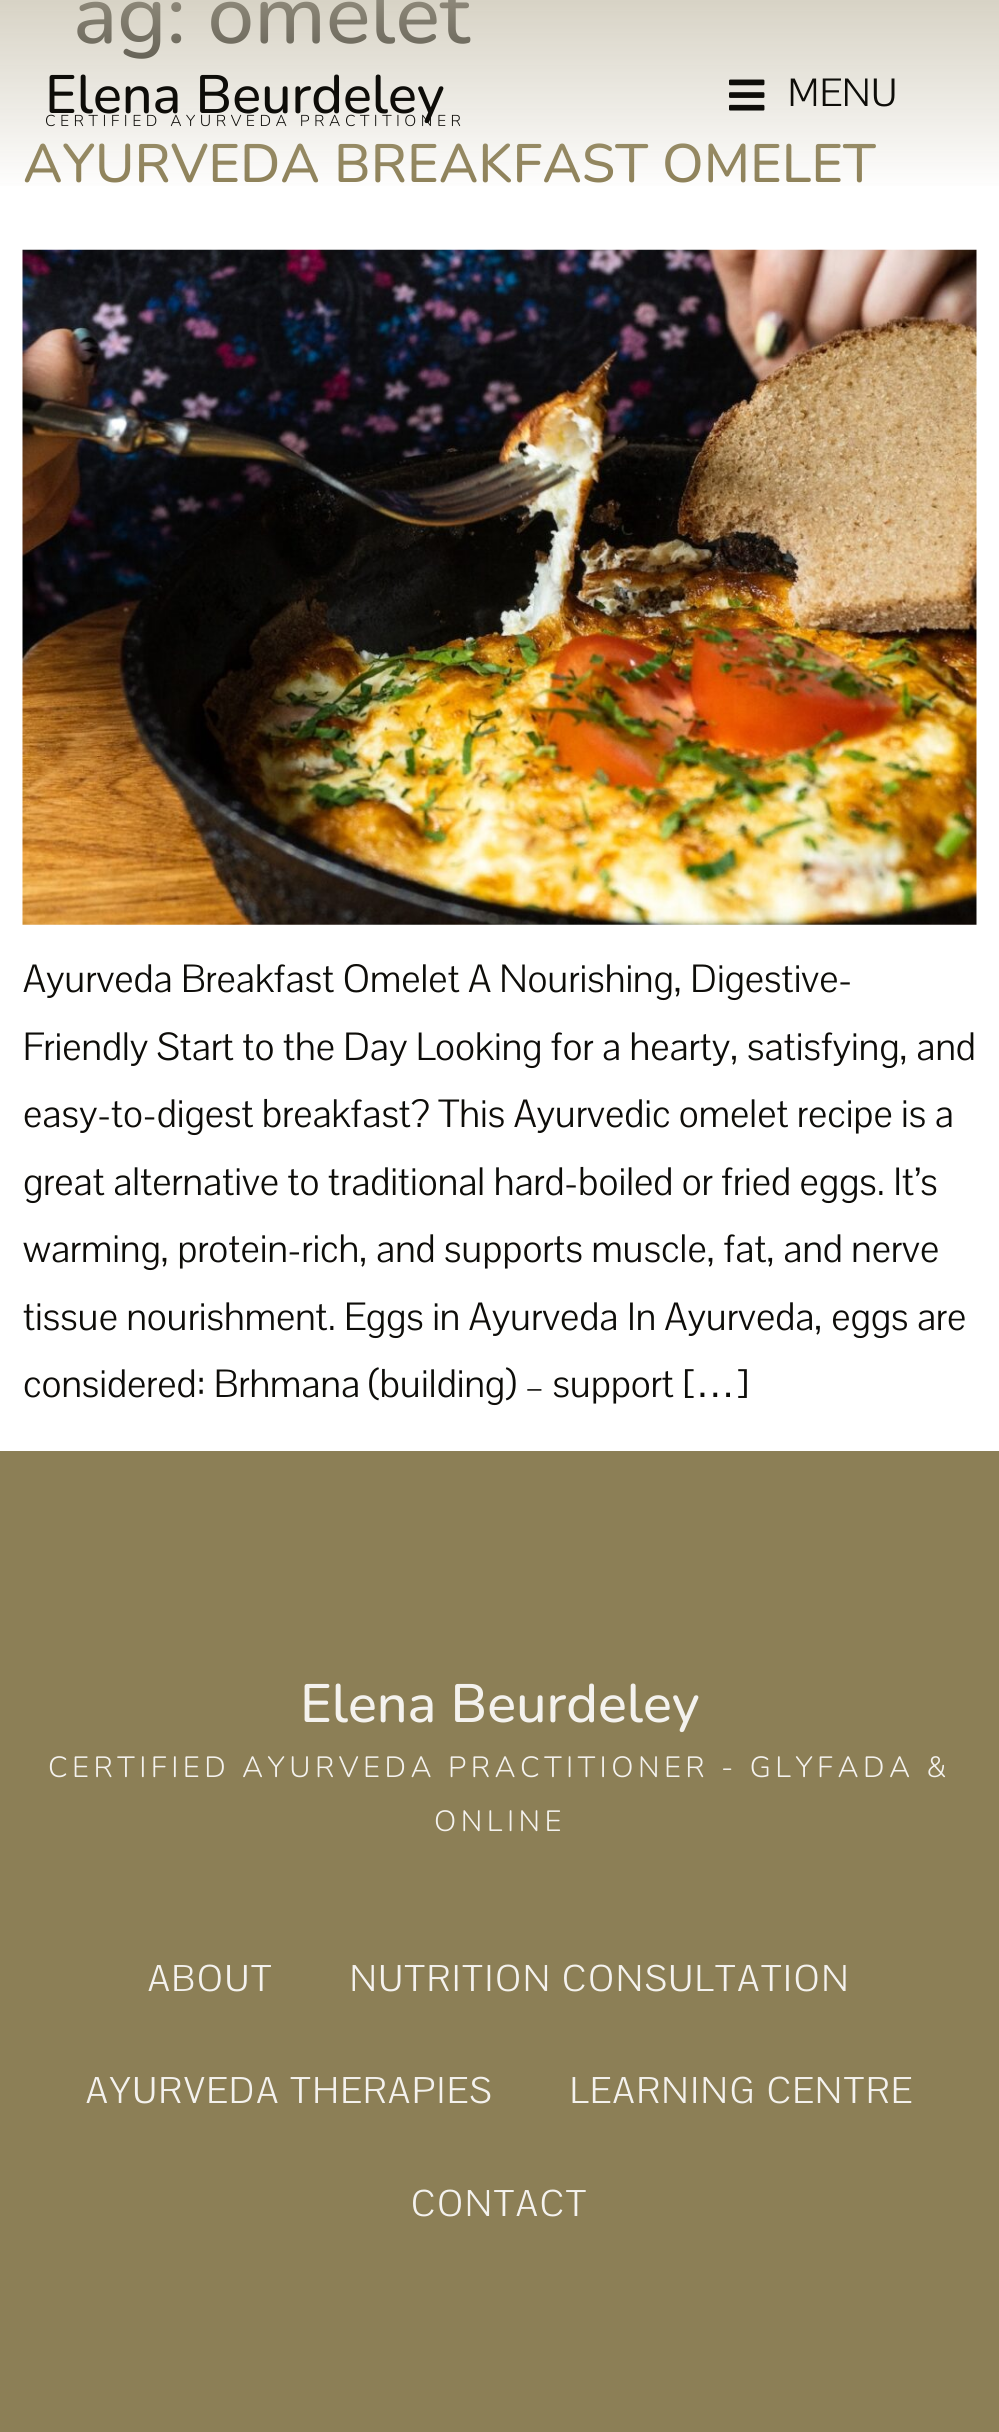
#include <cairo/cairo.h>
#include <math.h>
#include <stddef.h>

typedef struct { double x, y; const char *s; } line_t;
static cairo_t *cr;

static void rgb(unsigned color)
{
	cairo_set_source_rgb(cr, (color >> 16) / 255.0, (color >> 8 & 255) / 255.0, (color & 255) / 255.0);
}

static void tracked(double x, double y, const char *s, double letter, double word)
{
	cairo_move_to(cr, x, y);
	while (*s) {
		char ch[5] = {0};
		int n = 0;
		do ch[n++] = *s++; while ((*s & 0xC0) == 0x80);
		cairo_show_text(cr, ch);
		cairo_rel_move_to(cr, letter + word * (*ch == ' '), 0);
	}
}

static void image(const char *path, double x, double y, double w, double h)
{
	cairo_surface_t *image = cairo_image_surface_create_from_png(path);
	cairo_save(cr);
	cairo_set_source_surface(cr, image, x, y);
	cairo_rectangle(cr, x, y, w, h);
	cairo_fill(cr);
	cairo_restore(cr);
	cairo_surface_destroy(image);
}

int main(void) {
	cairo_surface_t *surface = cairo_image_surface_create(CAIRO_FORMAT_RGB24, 999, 2432);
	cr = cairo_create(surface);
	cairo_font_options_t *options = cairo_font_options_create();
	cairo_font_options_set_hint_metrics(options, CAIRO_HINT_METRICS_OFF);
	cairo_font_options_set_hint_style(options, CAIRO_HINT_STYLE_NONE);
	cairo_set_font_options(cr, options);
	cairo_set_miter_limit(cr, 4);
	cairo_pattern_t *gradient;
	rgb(0xffffff);
	cairo_paint(cr);
	image("img/1.png", 22, 249, 955, 676);
	rgb(0x8c7f56);
	cairo_rectangle(cr, 0, 1451, 999, 981);
	cairo_fill(cr);
	cairo_select_font_face(cr, "Nunito Medium", CAIRO_FONT_SLANT_NORMAL, CAIRO_FONT_WEIGHT_NORMAL);
	cairo_set_font_size(cr, 83.25);
	rgb(0x0e0d09);
	cairo_move_to(cr, 73, 43);
	cairo_show_text(cr, "ag: omelet");
	cairo_set_font_size(cr, 54);
	rgb(0x8c7f56);
	cairo_move_to(cr, 23, 182);
	cairo_show_text(cr, "AYURVEDA BREAKFAST OMELET");
	cairo_select_font_face(cr, "Pavanam", CAIRO_FONT_SLANT_NORMAL, CAIRO_FONT_WEIGHT_NORMAL);
	cairo_set_font_size(cr, 40.5);
	rgb(0x0e0d09);
	{
		static const line_t items[] = {
			{23, 992, "Ayurveda Breakfast Omelet A Nourishing, Digestive-"},
			{23, 1060, "Friendly Start to the Day Looking for a hearty, satisfying, and"},
			{23, 1127, "easy-to-digest breakfast? This Ayurvedic omelet recipe is a"},
			{23, 1195, "great alternative to traditional hard-boiled or fried eggs. It’s"},
			{23, 1262, "warming, protein-rich, and supports muscle, fat, and nerve"},
			{23, 1330, "tissue nourishment. Eggs in Ayurveda In Ayurveda, eggs are"},
			{23, 1397, "considered: Brhmana (building) – support ["},
		};
		for (size_t i = 0; i < sizeof items / sizeof *items; i++) {
			cairo_move_to(cr, items[i].x, items[i].y);
			cairo_show_text(cr, items[i].s);
		}
	}
	cairo_select_font_face(cr, "Liberation Sans", CAIRO_FONT_SLANT_NORMAL, CAIRO_FONT_WEIGHT_NORMAL);
	cairo_move_to(cr, 695, 1397);
	cairo_show_text(cr, "…");
	cairo_select_font_face(cr, "Pavanam", CAIRO_FONT_SLANT_NORMAL, CAIRO_FONT_WEIGHT_NORMAL);
	cairo_move_to(cr, 736, 1397);
	cairo_show_text(cr, "]");
	gradient = cairo_pattern_create_linear(500, 194, 500, 0);
	cairo_pattern_add_color_stop_rgba(gradient, 0, 0.776, 0.749, 0.671, 0);
	cairo_pattern_add_color_stop_rgba(gradient, 1, 0.776, 0.749, 0.671, 0.69);
	cairo_set_source(cr, gradient);
	cairo_pattern_destroy(gradient);
	cairo_rectangle(cr, 0, 0, 999, 186);
	cairo_fill(cr);
	cairo_select_font_face(cr, "Nunito Medium", CAIRO_FONT_SLANT_NORMAL, CAIRO_FONT_WEIGHT_NORMAL);
	cairo_set_font_size(cr, 54);
	rgb(0x0e0d09);
	cairo_move_to(cr, 45, 113);
	cairo_show_text(cr, "Elena Beurdeley");
	cairo_select_font_face(cr, "Nunito Light", CAIRO_FONT_SLANT_NORMAL, CAIRO_FONT_WEIGHT_NORMAL);
	cairo_set_font_size(cr, 15.75);
	tracked(45, 126, "CERTIFIED AYURVEDA PRACTITIONER", 4.5, 0);
	image("img/2.png", 729, 79, 36, 32);
	cairo_select_font_face(cr, "Pavanam", CAIRO_FONT_SLANT_NORMAL, CAIRO_FONT_WEIGHT_NORMAL);
	cairo_set_font_size(cr, 40.5);
	tracked(788, 106, "MENU", 1, 0);
	cairo_select_font_face(cr, "Nunito Medium", CAIRO_FONT_SLANT_NORMAL, CAIRO_FONT_WEIGHT_NORMAL);
	cairo_set_font_size(cr, 54);
	rgb(0xf4f2ee);
	cairo_move_to(cr, 300, 1722);
	cairo_show_text(cr, "Elena Beurdeley");
	cairo_select_font_face(cr, "Nunito Light", CAIRO_FONT_SLANT_NORMAL, CAIRO_FONT_WEIGHT_NORMAL);
	cairo_set_font_size(cr, 29.25);
	tracked(48, 1777, "CERTIFIED AYURVEDA PRACTITIONER - GLYFADA &", 4.5, 0);
	tracked(434, 1831, "ONLINE", 4.5, 0);
	cairo_select_font_face(cr, "Pavanam", CAIRO_FONT_SLANT_NORMAL, CAIRO_FONT_WEIGHT_NORMAL);
	cairo_set_font_size(cr, 38.25);
	{
		static const line_t items[] = {
			{148, 1991, "ABOUT"},
			{350, 1991, "NUTRITION CONSULTATION"},
			{86, 2103, "AYURVEDA THERAPIES"},
			{570, 2103, "LEARNING CENTRE"},
			{411, 2216, "CONTACT"},
		};
		for (size_t i = 0; i < sizeof items / sizeof *items; i++) {
			tracked(items[i].x, items[i].y, items[i].s, 2.25, 0);
		}
	}
	cairo_surface_write_to_png(surface, "page.png");
	cairo_font_options_destroy(options);
	cairo_destroy(cr);
	cairo_surface_destroy(surface);
	return 0;
}
